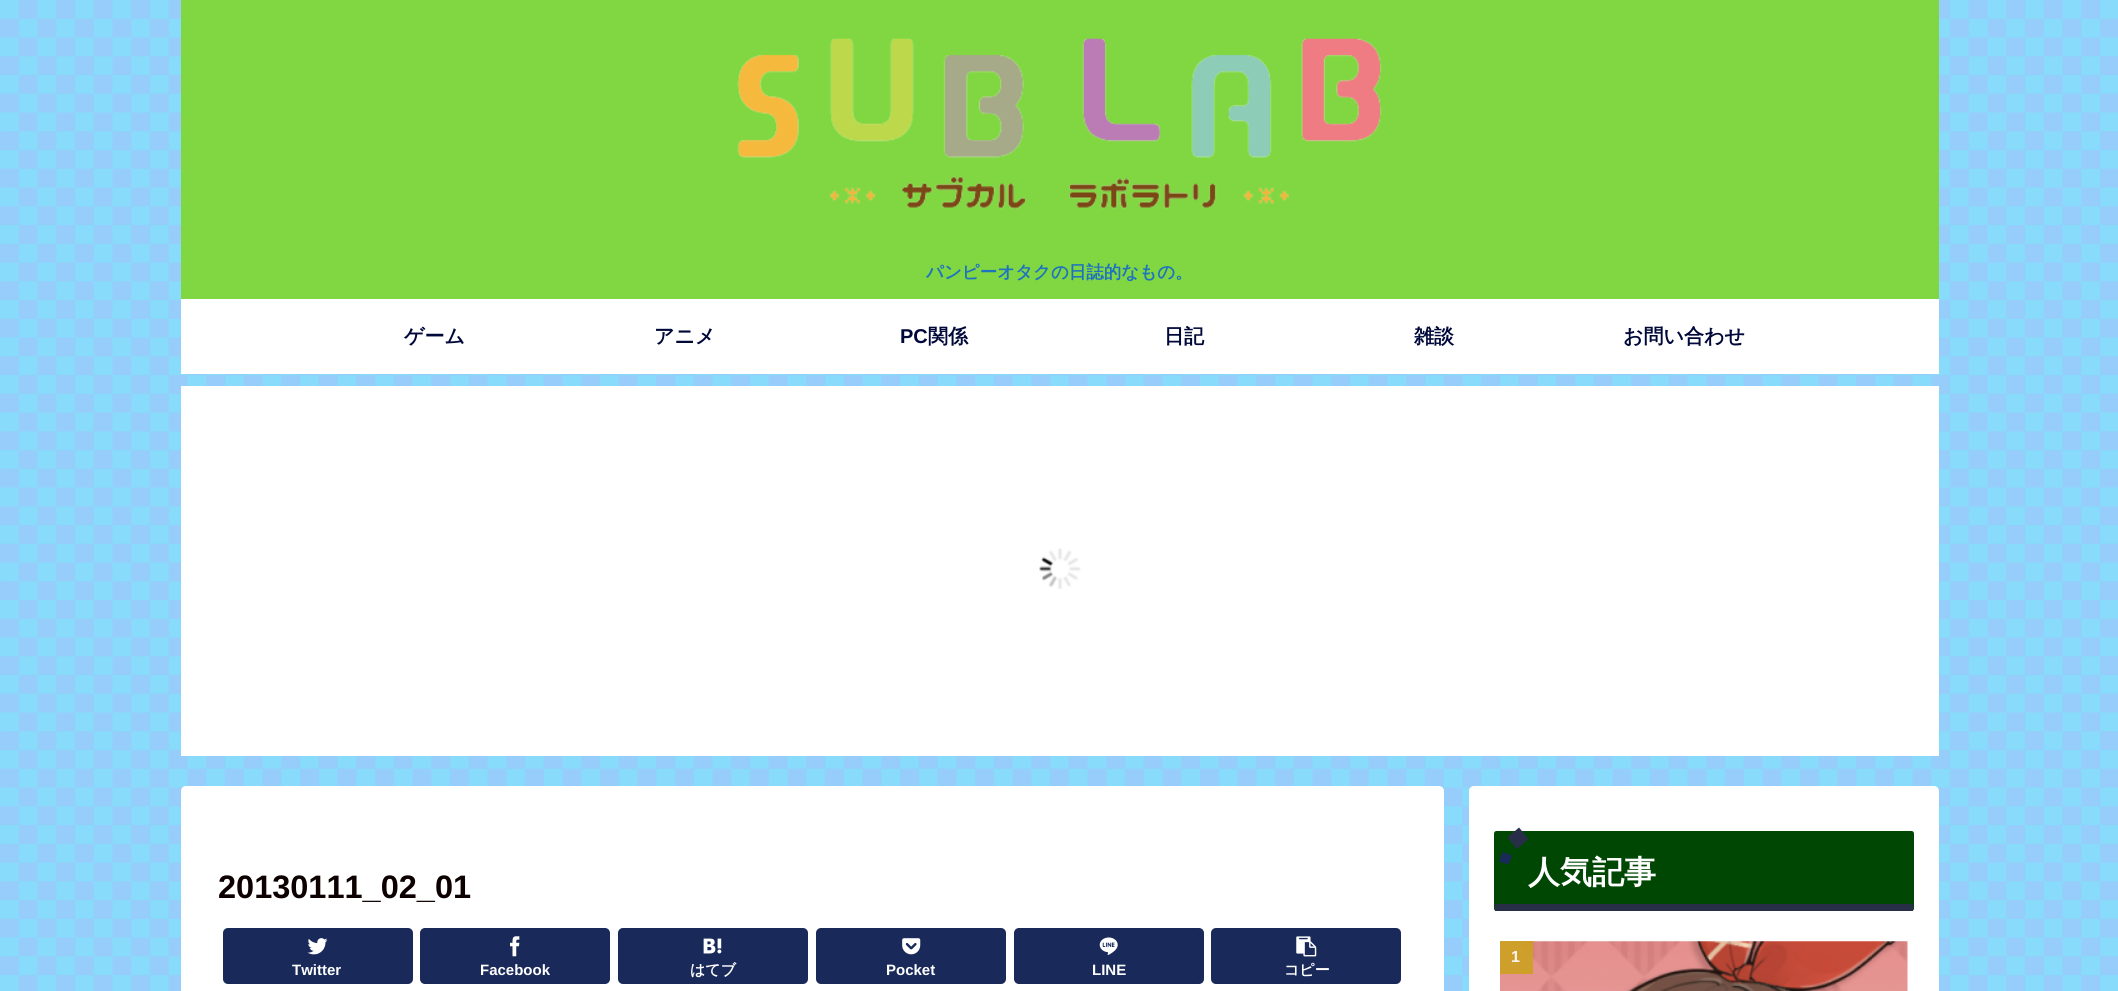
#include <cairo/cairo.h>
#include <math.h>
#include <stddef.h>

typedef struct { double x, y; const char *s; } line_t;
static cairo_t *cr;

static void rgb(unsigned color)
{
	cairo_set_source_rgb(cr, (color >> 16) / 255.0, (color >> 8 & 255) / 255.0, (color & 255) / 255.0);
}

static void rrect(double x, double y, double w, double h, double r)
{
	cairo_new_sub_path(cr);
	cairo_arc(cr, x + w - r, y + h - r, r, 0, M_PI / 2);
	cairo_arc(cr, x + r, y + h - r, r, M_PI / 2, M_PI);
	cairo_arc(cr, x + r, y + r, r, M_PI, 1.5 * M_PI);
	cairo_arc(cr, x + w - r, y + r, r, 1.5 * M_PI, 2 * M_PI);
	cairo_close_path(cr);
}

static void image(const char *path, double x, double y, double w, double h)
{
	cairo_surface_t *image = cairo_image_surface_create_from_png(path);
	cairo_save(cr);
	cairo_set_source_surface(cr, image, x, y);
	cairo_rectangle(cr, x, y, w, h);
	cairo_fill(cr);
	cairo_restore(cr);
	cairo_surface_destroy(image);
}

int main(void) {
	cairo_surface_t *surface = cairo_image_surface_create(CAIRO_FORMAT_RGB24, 2118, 991);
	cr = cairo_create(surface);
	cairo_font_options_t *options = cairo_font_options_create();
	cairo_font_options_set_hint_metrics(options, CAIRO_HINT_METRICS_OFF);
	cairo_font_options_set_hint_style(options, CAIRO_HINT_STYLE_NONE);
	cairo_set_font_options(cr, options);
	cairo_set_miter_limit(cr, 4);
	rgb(0xffffff);
	cairo_paint(cr);
	image("img/1.png", 0, 0, 2118, 991);
	rgb(0x81d742);
	cairo_rectangle(cr, 181, 0, 1758, 299);
	cairo_fill(cr);
	image("img/2.png", 737, 38, 645, 171);
	rgb(0xffffff);
	cairo_rectangle(cr, 181, 299, 1758, 75);
	cairo_fill(cr);
	cairo_rectangle(cr, 181, 386, 1758, 370);
	cairo_fill(cr);
	image("img/3.png", 1039, 548, 42, 41);
	rrect(181, 786, 1263, 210, 5);
	cairo_fill(cr);
	rgb(0x19295a);
	rrect(223, 928, 190, 56, 5);
	cairo_fill(cr);
	image("img/4.png", 307, 938, 21, 17);
	rrect(420, 928, 190, 56, 5);
	cairo_fill(cr);
	image("img/5.png", 510, 936, 10, 21);
	rrect(618, 928, 190, 56, 5);
	cairo_fill(cr);
	image("img/6.png", 703, 938, 19, 16);
	rrect(816, 928, 190, 56, 5);
	cairo_fill(cr);
	image("img/7.png", 902, 938, 19, 17);
	rrect(1014, 928, 190, 56, 5);
	cairo_fill(cr);
	image("img/8.png", 1099, 937, 19, 18);
	rrect(1211, 928, 190, 56, 5);
	cairo_fill(cr);
	image("img/9.png", 1296, 936, 21, 21);
	rgb(0xffffff);
	rrect(1469, 786, 470, 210, 5);
	cairo_fill(cr);
	rgb(0x004703);
	rrect(1494, 831, 420, 80, 2.5);
	cairo_fill(cr);
	rgb(0x282d48);
	cairo_rectangle(cr, 1495, 904, 418, 7);
	cairo_fill(cr);
	cairo_new_path(cr);
	cairo_move_to(cr, 1519, 827.5);
	cairo_line_to(cr, 1528.5, 839);
	cairo_line_to(cr, 1517, 849);
	cairo_line_to(cr, 1507.5, 837.5);
	cairo_close_path(cr);
	cairo_fill(cr);
	rgb(0x19295a);
	cairo_new_path(cr);
	cairo_move_to(cr, 1502.5, 852);
	cairo_line_to(cr, 1512, 855.5);
	cairo_line_to(cr, 1508.5, 864.5);
	cairo_line_to(cr, 1499, 861.5);
	cairo_close_path(cr);
	cairo_fill(cr);
	image("img/10.png", 1500, 941, 408, 50);
	cairo_set_source_rgba(cr, 0.8, 0.631, 0.122, 0.9);
	cairo_rectangle(cr, 1500, 941, 33, 33);
	cairo_fill(cr);
	cairo_select_font_face(cr, "WenQuanYi Zen Hei", CAIRO_FONT_SLANT_NORMAL, CAIRO_FONT_WEIGHT_BOLD);
	cairo_set_font_size(cr, 17.5);
	rgb(0x1e73be);
	cairo_move_to(cr, 926, 278);
	cairo_show_text(cr, "パンピーオタクの日誌的なもの。");
	cairo_set_font_size(cr, 20);
	rgb(0x00083a);
	cairo_move_to(cr, 404, 343);
	cairo_show_text(cr, "ゲーム");
	cairo_move_to(cr, 654, 343);
	cairo_show_text(cr, "アニメ");
	cairo_select_font_face(cr, "Liberation Sans", CAIRO_FONT_SLANT_NORMAL, CAIRO_FONT_WEIGHT_BOLD);
	cairo_move_to(cr, 900, 343);
	cairo_show_text(cr, "PC");
	cairo_select_font_face(cr, "WenQuanYi Zen Hei", CAIRO_FONT_SLANT_NORMAL, CAIRO_FONT_WEIGHT_BOLD);
	{
		static const line_t items[] = {
			{928, 343, "関係"},
			{1164, 343, "日記"},
			{1414, 343, "雑談"},
			{1623, 343, "お問い合わせ"},
		};
		for (size_t i = 0; i < sizeof items / sizeof *items; i++) {
			cairo_move_to(cr, items[i].x, items[i].y);
			cairo_show_text(cr, items[i].s);
		}
	}
	cairo_select_font_face(cr, "Liberation Sans", CAIRO_FONT_SLANT_NORMAL, CAIRO_FONT_WEIGHT_BOLD);
	cairo_set_font_size(cr, 32.5);
	rgb(0x0c0000);
	cairo_move_to(cr, 218, 898);
	cairo_show_text(cr, "20130111_02_01");
	cairo_set_font_size(cr, 15);
	rgb(0xffffff);
	cairo_move_to(cr, 292, 975);
	cairo_show_text(cr, "Twitter");
	cairo_move_to(cr, 480, 975);
	cairo_show_text(cr, "Facebook");
	cairo_select_font_face(cr, "WenQuanYi Zen Hei", CAIRO_FONT_SLANT_NORMAL, CAIRO_FONT_WEIGHT_BOLD);
	cairo_move_to(cr, 690, 975);
	cairo_show_text(cr, "はてブ");
	cairo_select_font_face(cr, "Liberation Sans", CAIRO_FONT_SLANT_NORMAL, CAIRO_FONT_WEIGHT_BOLD);
	cairo_move_to(cr, 886, 975);
	cairo_show_text(cr, "Pocket");
	cairo_move_to(cr, 1092, 975);
	cairo_show_text(cr, "LINE");
	cairo_select_font_face(cr, "WenQuanYi Zen Hei", CAIRO_FONT_SLANT_NORMAL, CAIRO_FONT_WEIGHT_BOLD);
	cairo_move_to(cr, 1284, 975);
	cairo_show_text(cr, "コピー");
	cairo_set_font_size(cr, 32);
	cairo_move_to(cr, 1528, 883);
	cairo_show_text(cr, "人気記事");
	cairo_select_font_face(cr, "Liberation Sans", CAIRO_FONT_SLANT_NORMAL, CAIRO_FONT_WEIGHT_BOLD);
	cairo_set_font_size(cr, 16);
	rgb(0xfcf4f4);
	cairo_move_to(cr, 1511, 962);
	cairo_show_text(cr, "1");
	cairo_surface_write_to_png(surface, "page.png");
	cairo_font_options_destroy(options);
	cairo_destroy(cr);
	cairo_surface_destroy(surface);
	return 0;
}
